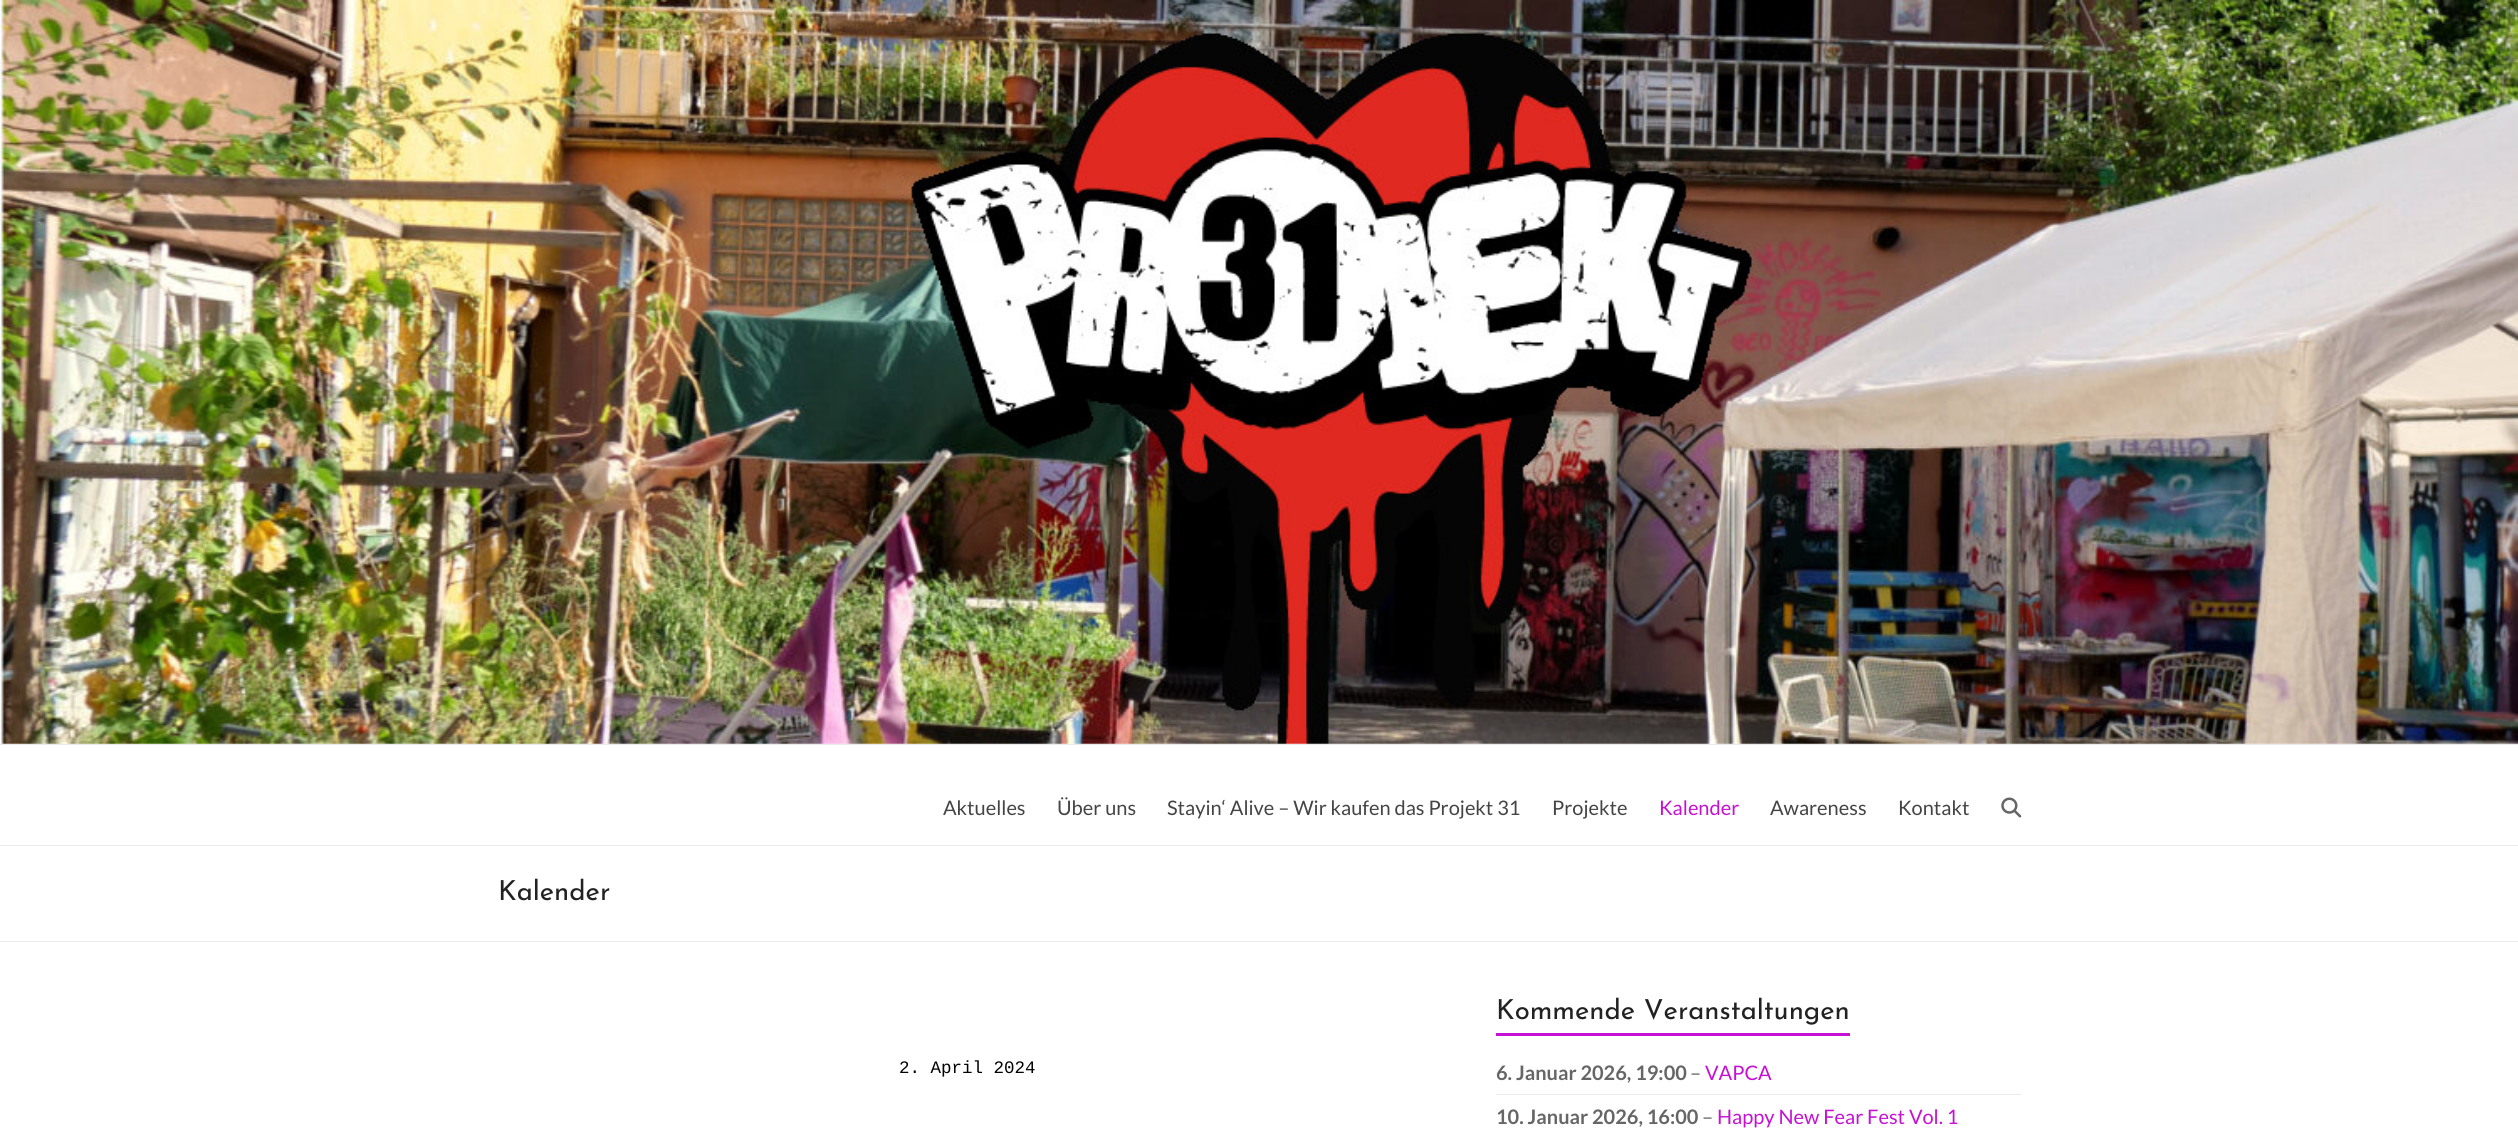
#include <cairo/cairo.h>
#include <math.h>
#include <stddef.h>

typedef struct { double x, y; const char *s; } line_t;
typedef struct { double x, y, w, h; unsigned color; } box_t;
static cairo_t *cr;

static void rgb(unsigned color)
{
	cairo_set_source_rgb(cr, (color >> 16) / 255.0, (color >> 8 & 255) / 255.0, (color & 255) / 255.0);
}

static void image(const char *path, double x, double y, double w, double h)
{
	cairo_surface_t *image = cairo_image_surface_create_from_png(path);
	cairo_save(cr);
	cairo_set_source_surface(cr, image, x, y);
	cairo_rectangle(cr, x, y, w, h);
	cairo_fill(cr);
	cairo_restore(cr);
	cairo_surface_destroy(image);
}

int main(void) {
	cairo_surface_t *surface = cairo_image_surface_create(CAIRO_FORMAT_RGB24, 2518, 1135);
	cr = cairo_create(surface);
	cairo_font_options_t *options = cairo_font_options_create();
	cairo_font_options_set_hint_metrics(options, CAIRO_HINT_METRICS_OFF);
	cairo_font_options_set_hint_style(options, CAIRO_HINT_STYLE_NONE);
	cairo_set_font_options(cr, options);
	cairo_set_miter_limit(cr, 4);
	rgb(0xffffff);
	cairo_paint(cr);
	image("img/1.png", 0, 0, 2518, 744);
	rgb(0xeaeaea);
	cairo_rectangle(cr, 0, 744, 2518, 1);
	cairo_fill(cr);
	cairo_rectangle(cr, 0, 845, 2518, 1);
	cairo_fill(cr);
	image("img/2.png", 2001, 797, 21, 21);
	{
		static const box_t items[] = {
			{0, 941, 2518, 1, 0xeaeaea},
			{1496, 1033, 354, 3, 0xc610d3},
			{1496, 1094, 525, 1, 0xeaeaea},
		};
		for (size_t i = 0; i < sizeof items / sizeof *items; i++) {
			rgb(items[i].color);
			cairo_rectangle(cr, items[i].x, items[i].y, items[i].w, items[i].h);
			cairo_fill(cr);
		}
	}
	cairo_select_font_face(cr, "Lato", CAIRO_FONT_SLANT_NORMAL, CAIRO_FONT_WEIGHT_NORMAL);
	cairo_set_font_size(cr, 20);
	rgb(0x444444);
	{
		static const line_t items[] = {
			{943, 815, "Aktuelles"},
			{1057, 815, "Über uns"},
			{1167, 815, "Stayin‘ Alive – Wir kaufen das Projekt 31"},
			{1552, 815, "Projekte"},
		};
		for (size_t i = 0; i < sizeof items / sizeof *items; i++) {
			cairo_move_to(cr, items[i].x, items[i].y);
			cairo_show_text(cr, items[i].s);
		}
	}
	rgb(0xc610d3);
	cairo_move_to(cr, 1659, 815);
	cairo_show_text(cr, "Kalender");
	rgb(0x444444);
	cairo_move_to(cr, 1770, 815);
	cairo_show_text(cr, "Awareness");
	cairo_move_to(cr, 1898, 815);
	cairo_show_text(cr, "Kontakt");
	cairo_select_font_face(cr, "Josefin Sans Thin", CAIRO_FONT_SLANT_NORMAL, CAIRO_FONT_WEIGHT_NORMAL);
	cairo_set_font_size(cr, 27.5);
	rgb(0x222222);
	cairo_move_to(cr, 498, 900);
	cairo_show_text(cr, "Kalender");
	cairo_select_font_face(cr, "Liberation Mono", CAIRO_FONT_SLANT_NORMAL, CAIRO_FONT_WEIGHT_NORMAL);
	cairo_set_font_size(cr, 17.5);
	rgb(0x000000);
	cairo_move_to(cr, 899, 1073);
	cairo_show_text(cr, "2. April 2024");
	cairo_select_font_face(cr, "Josefin Sans Thin", CAIRO_FONT_SLANT_NORMAL, CAIRO_FONT_WEIGHT_NORMAL);
	cairo_set_font_size(cr, 27.5);
	rgb(0x222222);
	cairo_move_to(cr, 1496, 1019);
	cairo_show_text(cr, "Kommende Veranstaltungen");
	cairo_select_font_face(cr, "Lato", CAIRO_FONT_SLANT_NORMAL, CAIRO_FONT_WEIGHT_BOLD);
	cairo_set_font_size(cr, 20);
	rgb(0x666666);
	cairo_move_to(cr, 1496, 1080);
	cairo_show_text(cr, "6. Januar 2026, 19:00");
	cairo_select_font_face(cr, "Lato", CAIRO_FONT_SLANT_NORMAL, CAIRO_FONT_WEIGHT_NORMAL);
	cairo_move_to(cr, 1690, 1080);
	cairo_show_text(cr, "–");
	rgb(0xc610d3);
	cairo_move_to(cr, 1705, 1080);
	cairo_show_text(cr, "VAPCA");
	cairo_select_font_face(cr, "Lato", CAIRO_FONT_SLANT_NORMAL, CAIRO_FONT_WEIGHT_BOLD);
	rgb(0x666666);
	cairo_move_to(cr, 1496, 1124);
	cairo_show_text(cr, "10. Januar 2026, 16:00");
	cairo_select_font_face(cr, "Lato", CAIRO_FONT_SLANT_NORMAL, CAIRO_FONT_WEIGHT_NORMAL);
	cairo_move_to(cr, 1702, 1124);
	cairo_show_text(cr, "–");
	rgb(0xc610d3);
	cairo_move_to(cr, 1717, 1124);
	cairo_show_text(cr, "Happy New Fear Fest Vol. 1");
	cairo_surface_write_to_png(surface, "page.png");
	cairo_font_options_destroy(options);
	cairo_destroy(cr);
	cairo_surface_destroy(surface);
	return 0;
}
